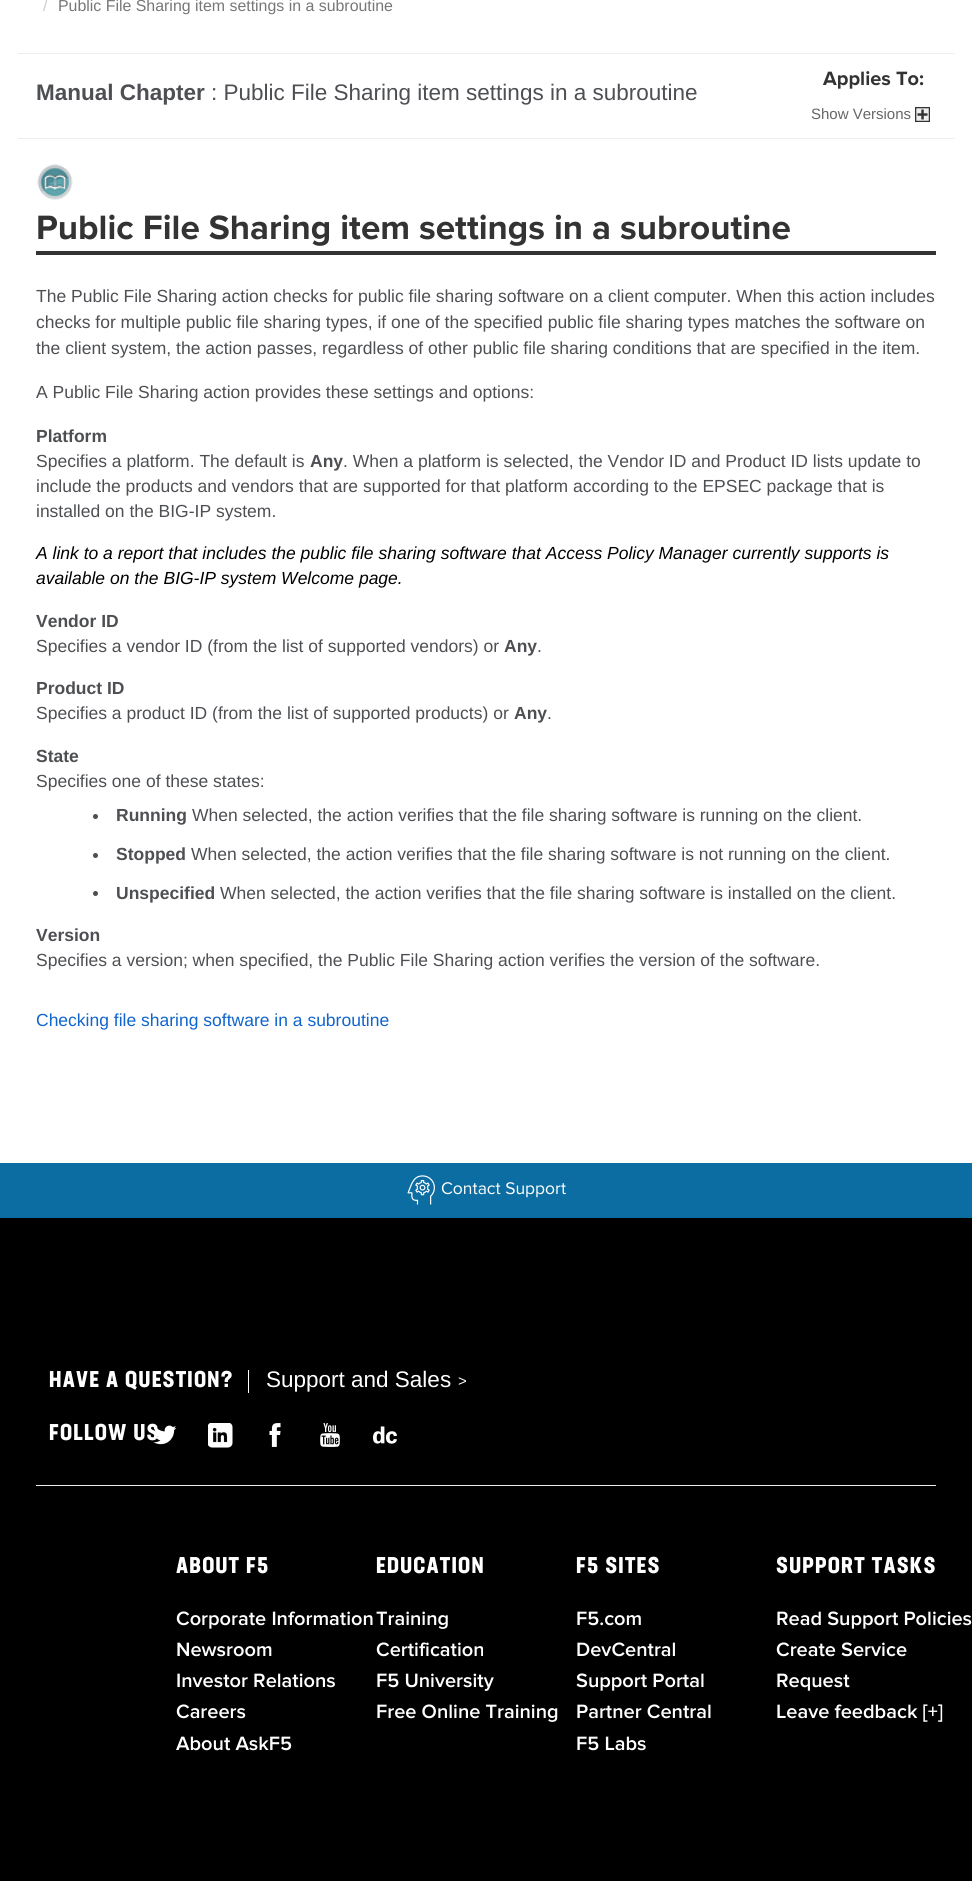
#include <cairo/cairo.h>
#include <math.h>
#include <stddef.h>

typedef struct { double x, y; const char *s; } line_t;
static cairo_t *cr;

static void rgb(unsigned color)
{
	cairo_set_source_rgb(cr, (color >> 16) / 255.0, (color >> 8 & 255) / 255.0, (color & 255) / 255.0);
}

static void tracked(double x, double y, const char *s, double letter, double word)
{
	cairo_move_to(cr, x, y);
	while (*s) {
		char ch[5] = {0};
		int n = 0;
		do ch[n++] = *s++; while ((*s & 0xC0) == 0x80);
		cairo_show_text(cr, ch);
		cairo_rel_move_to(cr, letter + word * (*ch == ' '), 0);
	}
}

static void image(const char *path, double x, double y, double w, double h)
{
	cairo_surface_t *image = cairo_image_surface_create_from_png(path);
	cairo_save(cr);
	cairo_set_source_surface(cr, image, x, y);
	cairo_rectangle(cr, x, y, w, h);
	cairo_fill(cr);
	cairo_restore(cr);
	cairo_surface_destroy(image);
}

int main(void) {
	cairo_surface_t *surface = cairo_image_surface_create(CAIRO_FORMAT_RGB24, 972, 1881);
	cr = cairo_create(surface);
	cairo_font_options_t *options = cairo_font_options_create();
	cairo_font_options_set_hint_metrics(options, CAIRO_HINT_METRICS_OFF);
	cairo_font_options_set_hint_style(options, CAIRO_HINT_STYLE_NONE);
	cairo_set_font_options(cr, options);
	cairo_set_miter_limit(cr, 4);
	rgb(0xffffff);
	cairo_paint(cr);
	rgb(0xeeeeee);
	cairo_rectangle(cr, 18, 53, 937, 1);
	cairo_fill(cr);
	cairo_rectangle(cr, 18, 138, 937, 1);
	cairo_fill(cr);
	image("img/1.png", 915, 107, 15, 15);
	image("img/2.png", 37, 164, 36, 36);
	rgb(0x333333);
	cairo_rectangle(cr, 36, 251, 900, 4);
	cairo_fill(cr);
	rgb(0x4d4f53);
	cairo_arc(cr, 95.5, 816.5, 2.5, 0, 2 * M_PI);
	cairo_fill(cr);
	cairo_arc(cr, 95.5, 855.5, 2.5, 0, 2 * M_PI);
	cairo_fill(cr);
	cairo_arc(cr, 95.5, 893.5, 2.5, 0, 2 * M_PI);
	cairo_fill(cr);
	rgb(0x0b6da1);
	cairo_rectangle(cr, 0, 1163, 972, 55);
	cairo_fill(cr);
	image("img/3.png", 407, 1175, 28, 30);
	rgb(0x000000);
	cairo_rectangle(cr, 0, 1218, 972, 663);
	cairo_fill(cr);
	rgb(0xffffff);
	cairo_rectangle(cr, 248, 1370, 1, 23);
	cairo_fill(cr);
	image("img/5.png", 208, 1423, 25, 25);
	image("img/6.png", 269, 1423, 12, 24);
	image("img/7.png", 320, 1423, 20, 24);
	image("img/8.png", 373, 1426, 24, 18);
	rgb(0xeeeeee);
	cairo_rectangle(cr, 36, 1485, 900, 1);
	cairo_fill(cr);
	cairo_select_font_face(cr, "Liberation Sans", CAIRO_FONT_SLANT_NORMAL, CAIRO_FONT_WEIGHT_NORMAL);
	cairo_set_font_size(cr, 15.9);
	rgb(0xcccccc);
	cairo_move_to(cr, 43, 11);
	cairo_show_text(cr, "/");
	rgb(0x777777);
	cairo_move_to(cr, 58, 11);
	cairo_show_text(cr, "Public File Sharing item settings in a subroutine");
	cairo_select_font_face(cr, "Liberation Sans", CAIRO_FONT_SLANT_NORMAL, CAIRO_FONT_WEIGHT_BOLD);
	cairo_set_font_size(cr, 22.5);
	rgb(0x4d4f53);
	cairo_move_to(cr, 36, 100);
	cairo_show_text(cr, "Manual Chapter");
	cairo_select_font_face(cr, "Liberation Sans", CAIRO_FONT_SLANT_NORMAL, CAIRO_FONT_WEIGHT_NORMAL);
	cairo_move_to(cr, 211, 100);
	cairo_show_text(cr, ": Public File Sharing item settings in a subroutine");
	cairo_select_font_face(cr, "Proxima", CAIRO_FONT_SLANT_NORMAL, CAIRO_FONT_WEIGHT_NORMAL);
	cairo_set_font_size(cr, 20);
	rgb(0x333333);
	cairo_move_to(cr, 823, 85);
	cairo_show_text(cr, "Applies To:");
	cairo_select_font_face(cr, "Liberation Sans", CAIRO_FONT_SLANT_NORMAL, CAIRO_FONT_WEIGHT_NORMAL);
	cairo_set_font_size(cr, 15);
	rgb(0x666666);
	cairo_move_to(cr, 811, 119);
	cairo_show_text(cr, "Show Versions");
	cairo_select_font_face(cr, "Proxima", CAIRO_FONT_SLANT_NORMAL, CAIRO_FONT_WEIGHT_NORMAL);
	cairo_set_font_size(cr, 35);
	rgb(0x333333);
	cairo_move_to(cr, 36, 239);
	cairo_show_text(cr, "Public File Sharing item settings in a subroutine");
	cairo_select_font_face(cr, "Liberation Sans", CAIRO_FONT_SLANT_NORMAL, CAIRO_FONT_WEIGHT_NORMAL);
	cairo_set_font_size(cr, 17.5);
	rgb(0x4d4f53);
	{
		static const line_t items[] = {
			{36, 302, "The Public File Sharing action checks for public file sharing software on a client computer. When this action includes"},
			{36, 328, "checks for multiple public file sharing types, if one of the specified public file sharing types matches the software on"},
			{36, 354, "the client system, the action passes, regardless of other public file sharing conditions that are specified in the item."},
			{36, 398, "A Public File Sharing action provides these settings and options:"},
		};
		for (size_t i = 0; i < sizeof items / sizeof *items; i++) {
			cairo_move_to(cr, items[i].x, items[i].y);
			cairo_show_text(cr, items[i].s);
		}
	}
	cairo_select_font_face(cr, "Liberation Sans", CAIRO_FONT_SLANT_NORMAL, CAIRO_FONT_WEIGHT_BOLD);
	cairo_move_to(cr, 36, 442);
	cairo_show_text(cr, "Platform");
	cairo_select_font_face(cr, "Liberation Sans", CAIRO_FONT_SLANT_NORMAL, CAIRO_FONT_WEIGHT_NORMAL);
	cairo_move_to(cr, 36, 467);
	cairo_show_text(cr, "Specifies a platform. The default is");
	cairo_select_font_face(cr, "Liberation Sans", CAIRO_FONT_SLANT_NORMAL, CAIRO_FONT_WEIGHT_BOLD);
	cairo_move_to(cr, 310, 467);
	cairo_show_text(cr, "Any");
	cairo_select_font_face(cr, "Liberation Sans", CAIRO_FONT_SLANT_NORMAL, CAIRO_FONT_WEIGHT_NORMAL);
	{
		static const line_t items[] = {
			{343, 467, ". When a platform is selected, the Vendor ID and Product ID lists update to"},
			{36, 492, "include the products and vendors that are supported for that platform according to the EPSEC package that is"},
			{36, 517, "installed on the BIG-IP system."},
		};
		for (size_t i = 0; i < sizeof items / sizeof *items; i++) {
			cairo_move_to(cr, items[i].x, items[i].y);
			cairo_show_text(cr, items[i].s);
		}
	}
	cairo_select_font_face(cr, "Liberation Sans", CAIRO_FONT_SLANT_ITALIC, CAIRO_FONT_WEIGHT_NORMAL);
	rgb(0x000000);
	cairo_move_to(cr, 36, 559);
	cairo_show_text(cr, "A link to a report that includes the public file sharing software that Access Policy Manager currently supports is");
	cairo_move_to(cr, 36, 584);
	cairo_show_text(cr, "available on the BIG-IP system Welcome page.");
	cairo_select_font_face(cr, "Liberation Sans", CAIRO_FONT_SLANT_NORMAL, CAIRO_FONT_WEIGHT_BOLD);
	rgb(0x4d4f53);
	cairo_move_to(cr, 36, 627);
	cairo_show_text(cr, "Vendor ID");
	cairo_select_font_face(cr, "Liberation Sans", CAIRO_FONT_SLANT_NORMAL, CAIRO_FONT_WEIGHT_NORMAL);
	cairo_move_to(cr, 36, 652);
	cairo_show_text(cr, "Specifies a vendor ID (from the list of supported vendors) or");
	cairo_select_font_face(cr, "Liberation Sans", CAIRO_FONT_SLANT_NORMAL, CAIRO_FONT_WEIGHT_BOLD);
	cairo_move_to(cr, 504, 652);
	cairo_show_text(cr, "Any");
	cairo_select_font_face(cr, "Liberation Sans", CAIRO_FONT_SLANT_NORMAL, CAIRO_FONT_WEIGHT_NORMAL);
	cairo_move_to(cr, 537, 652);
	cairo_show_text(cr, ".");
	cairo_select_font_face(cr, "Liberation Sans", CAIRO_FONT_SLANT_NORMAL, CAIRO_FONT_WEIGHT_BOLD);
	cairo_move_to(cr, 36, 694);
	cairo_show_text(cr, "Product ID");
	cairo_select_font_face(cr, "Liberation Sans", CAIRO_FONT_SLANT_NORMAL, CAIRO_FONT_WEIGHT_NORMAL);
	cairo_move_to(cr, 36, 719);
	cairo_show_text(cr, "Specifies a product ID (from the list of supported products) or");
	cairo_select_font_face(cr, "Liberation Sans", CAIRO_FONT_SLANT_NORMAL, CAIRO_FONT_WEIGHT_BOLD);
	cairo_move_to(cr, 514, 719);
	cairo_show_text(cr, "Any");
	cairo_select_font_face(cr, "Liberation Sans", CAIRO_FONT_SLANT_NORMAL, CAIRO_FONT_WEIGHT_NORMAL);
	cairo_move_to(cr, 547, 719);
	cairo_show_text(cr, ".");
	cairo_select_font_face(cr, "Liberation Sans", CAIRO_FONT_SLANT_NORMAL, CAIRO_FONT_WEIGHT_BOLD);
	cairo_move_to(cr, 36, 762);
	cairo_show_text(cr, "State");
	cairo_select_font_face(cr, "Liberation Sans", CAIRO_FONT_SLANT_NORMAL, CAIRO_FONT_WEIGHT_NORMAL);
	cairo_move_to(cr, 36, 787);
	cairo_show_text(cr, "Specifies one of these states:");
	cairo_select_font_face(cr, "Liberation Sans", CAIRO_FONT_SLANT_NORMAL, CAIRO_FONT_WEIGHT_BOLD);
	cairo_move_to(cr, 116, 821);
	cairo_show_text(cr, "Running");
	cairo_select_font_face(cr, "Liberation Sans", CAIRO_FONT_SLANT_NORMAL, CAIRO_FONT_WEIGHT_NORMAL);
	cairo_move_to(cr, 192, 821);
	cairo_show_text(cr, "When selected, the action verifies that the file sharing software is running on the client.");
	cairo_select_font_face(cr, "Liberation Sans", CAIRO_FONT_SLANT_NORMAL, CAIRO_FONT_WEIGHT_BOLD);
	cairo_move_to(cr, 116, 860);
	cairo_show_text(cr, "Stopped");
	cairo_select_font_face(cr, "Liberation Sans", CAIRO_FONT_SLANT_NORMAL, CAIRO_FONT_WEIGHT_NORMAL);
	cairo_move_to(cr, 191, 860);
	cairo_show_text(cr, "When selected, the action verifies that the file sharing software is not running on the client.");
	cairo_select_font_face(cr, "Liberation Sans", CAIRO_FONT_SLANT_NORMAL, CAIRO_FONT_WEIGHT_BOLD);
	cairo_move_to(cr, 116, 899);
	cairo_show_text(cr, "Unspecified");
	cairo_select_font_face(cr, "Liberation Sans", CAIRO_FONT_SLANT_NORMAL, CAIRO_FONT_WEIGHT_NORMAL);
	cairo_move_to(cr, 220, 899);
	cairo_show_text(cr, "When selected, the action verifies that the file sharing software is installed on the client.");
	cairo_select_font_face(cr, "Liberation Sans", CAIRO_FONT_SLANT_NORMAL, CAIRO_FONT_WEIGHT_BOLD);
	cairo_move_to(cr, 36, 941);
	cairo_show_text(cr, "Version");
	cairo_select_font_face(cr, "Liberation Sans", CAIRO_FONT_SLANT_NORMAL, CAIRO_FONT_WEIGHT_NORMAL);
	cairo_move_to(cr, 36, 966);
	cairo_show_text(cr, "Specifies a version; when specified, the Public File Sharing action verifies the version of the software.");
	rgb(0x0f64cd);
	cairo_move_to(cr, 36, 1026);
	cairo_show_text(cr, "Checking file sharing software in a subroutine");
	cairo_select_font_face(cr, "Proxima Nova", CAIRO_FONT_SLANT_NORMAL, CAIRO_FONT_WEIGHT_NORMAL);
	rgb(0xffffff);
	cairo_move_to(cr, 441, 1194);
	cairo_show_text(cr, "Contact Support");
	cairo_select_font_face(cr, "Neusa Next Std", CAIRO_FONT_SLANT_NORMAL, CAIRO_FONT_WEIGHT_BOLD);
	cairo_set_font_size(cr, 22.5);
	tracked(49, 1387, "HAVE A QUESTION?", 1.25, 0);
	cairo_select_font_face(cr, "Liberation Sans", CAIRO_FONT_SLANT_NORMAL, CAIRO_FONT_WEIGHT_NORMAL);
	cairo_move_to(cr, 266, 1387);
	cairo_show_text(cr, "Support and Sales");
	cairo_set_font_size(cr, 15);
	cairo_move_to(cr, 458, 1386);
	cairo_show_text(cr, ">");
	cairo_select_font_face(cr, "Neusa Next Std", CAIRO_FONT_SLANT_NORMAL, CAIRO_FONT_WEIGHT_BOLD);
	cairo_set_font_size(cr, 22.5);
	tracked(49, 1440, "FOLLOW US", 1.25, 0);
	image("img/4.png", 153, 1425, 24, 20);
	tracked(176, 1573, "ABOUT F5", 1.25, 0);
	cairo_select_font_face(cr, "Proxima Nova SemiBold", CAIRO_FONT_SLANT_NORMAL, CAIRO_FONT_WEIGHT_NORMAL);
	cairo_set_font_size(cr, 20);
	{
		static const line_t items[] = {
			{176, 1625, "Corporate Information"},
			{176, 1656, "Newsroom"},
			{176, 1687, "Investor Relations"},
			{176, 1718, "Careers"},
			{176, 1750, "About AskF5"},
		};
		for (size_t i = 0; i < sizeof items / sizeof *items; i++) {
			cairo_move_to(cr, items[i].x, items[i].y);
			cairo_show_text(cr, items[i].s);
		}
	}
	cairo_select_font_face(cr, "Neusa Next Std", CAIRO_FONT_SLANT_NORMAL, CAIRO_FONT_WEIGHT_BOLD);
	cairo_set_font_size(cr, 22.5);
	tracked(376, 1573, "EDUCATION", 1.25, 0);
	cairo_select_font_face(cr, "Proxima Nova SemiBold", CAIRO_FONT_SLANT_NORMAL, CAIRO_FONT_WEIGHT_NORMAL);
	cairo_set_font_size(cr, 20);
	{
		static const line_t items[] = {
			{376, 1625, "Training"},
			{376, 1656, "Certification"},
			{376, 1687, "F5 University"},
			{376, 1718, "Free Online Training"},
		};
		for (size_t i = 0; i < sizeof items / sizeof *items; i++) {
			cairo_move_to(cr, items[i].x, items[i].y);
			cairo_show_text(cr, items[i].s);
		}
	}
	cairo_select_font_face(cr, "Neusa Next Std", CAIRO_FONT_SLANT_NORMAL, CAIRO_FONT_WEIGHT_BOLD);
	cairo_set_font_size(cr, 22.5);
	tracked(576, 1573, "F5 SITES", 1.25, 0);
	cairo_select_font_face(cr, "Proxima Nova SemiBold", CAIRO_FONT_SLANT_NORMAL, CAIRO_FONT_WEIGHT_NORMAL);
	cairo_set_font_size(cr, 20);
	{
		static const line_t items[] = {
			{576, 1625, "F5.com"},
			{576, 1656, "DevCentral"},
			{576, 1687, "Support Portal"},
			{576, 1718, "Partner Central"},
			{576, 1750, "F5 Labs"},
		};
		for (size_t i = 0; i < sizeof items / sizeof *items; i++) {
			cairo_move_to(cr, items[i].x, items[i].y);
			cairo_show_text(cr, items[i].s);
		}
	}
	cairo_select_font_face(cr, "Neusa Next Std", CAIRO_FONT_SLANT_NORMAL, CAIRO_FONT_WEIGHT_BOLD);
	cairo_set_font_size(cr, 22.5);
	tracked(776, 1573, "SUPPORT TASKS", 1.25, 0);
	cairo_select_font_face(cr, "Proxima Nova SemiBold", CAIRO_FONT_SLANT_NORMAL, CAIRO_FONT_WEIGHT_NORMAL);
	cairo_set_font_size(cr, 20);
	{
		static const line_t items[] = {
			{776, 1625, "Read Support Policies"},
			{776, 1656, "Create Service"},
			{776, 1687, "Request"},
			{776, 1718, "Leave feedback [+]"},
		};
		for (size_t i = 0; i < sizeof items / sizeof *items; i++) {
			cairo_move_to(cr, items[i].x, items[i].y);
			cairo_show_text(cr, items[i].s);
		}
	}
	cairo_surface_write_to_png(surface, "page.png");
	cairo_font_options_destroy(options);
	cairo_destroy(cr);
	cairo_surface_destroy(surface);
	return 0;
}
